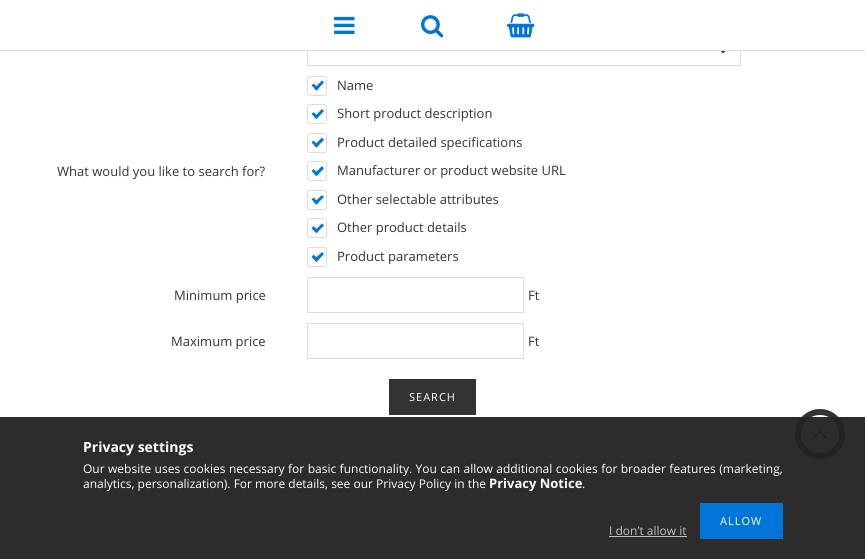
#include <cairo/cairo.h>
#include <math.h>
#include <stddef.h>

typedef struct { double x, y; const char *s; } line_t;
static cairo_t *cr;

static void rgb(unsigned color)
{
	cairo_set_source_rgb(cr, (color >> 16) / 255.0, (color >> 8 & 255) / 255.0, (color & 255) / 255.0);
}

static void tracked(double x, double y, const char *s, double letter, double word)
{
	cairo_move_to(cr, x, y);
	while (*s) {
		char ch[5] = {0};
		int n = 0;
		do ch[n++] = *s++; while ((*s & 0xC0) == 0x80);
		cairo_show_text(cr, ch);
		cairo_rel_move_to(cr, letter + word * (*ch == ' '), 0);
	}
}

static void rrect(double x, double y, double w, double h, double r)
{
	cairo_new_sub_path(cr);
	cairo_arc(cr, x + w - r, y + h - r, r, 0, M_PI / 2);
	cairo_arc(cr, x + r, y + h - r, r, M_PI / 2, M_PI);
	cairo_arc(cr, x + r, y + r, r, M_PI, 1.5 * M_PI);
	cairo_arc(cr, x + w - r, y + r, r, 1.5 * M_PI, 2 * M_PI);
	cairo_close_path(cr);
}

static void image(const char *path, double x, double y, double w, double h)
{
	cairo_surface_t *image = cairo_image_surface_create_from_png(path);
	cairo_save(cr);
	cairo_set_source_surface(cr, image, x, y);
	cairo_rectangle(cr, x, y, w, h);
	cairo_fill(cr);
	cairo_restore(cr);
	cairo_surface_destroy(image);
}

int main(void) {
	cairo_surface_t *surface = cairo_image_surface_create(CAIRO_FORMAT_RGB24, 865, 559);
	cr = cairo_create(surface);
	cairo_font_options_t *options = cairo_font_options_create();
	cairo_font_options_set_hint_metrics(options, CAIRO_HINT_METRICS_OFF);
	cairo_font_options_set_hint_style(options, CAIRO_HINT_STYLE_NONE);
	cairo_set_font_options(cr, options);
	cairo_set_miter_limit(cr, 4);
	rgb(0xffffff);
	cairo_paint(cr);
	cairo_rectangle(cr, 307.5, 30.5, 433, 35);
	rgb(0xdddddd);
	cairo_set_line_width(cr, 1);
	cairo_stroke(cr);
	rgb(0xffffff);
	cairo_rectangle(cr, 307, 30, 434, 20);
	cairo_fill(cr);
	rgb(0xdddddd);
	cairo_rectangle(cr, 0, 50, 865, 1);
	cairo_fill(cr);
	image("img/1.png", 334, 16, 21, 18);
	image("img/2.png", 421, 15, 23, 23);
	image("img/3.png", 507, 13, 28, 25);
	image("img/4.png", 720, 51, 6, 3);
	rrect(307.5, 76.5, 19, 19, 2.5);
	cairo_stroke(cr);
	rgb(0x0275d8);
	cairo_new_path(cr);
	cairo_move_to(cr, 314, 88.5);
	cairo_line_to(cr, 322, 80.5);
	cairo_line_to(cr, 324, 82.5);
	cairo_line_to(cr, 316.5, 90.5);
	cairo_close_path(cr);
	cairo_fill(cr);
	cairo_new_path(cr);
	cairo_move_to(cr, 311.5, 85.5);
	cairo_line_to(cr, 313.5, 83.5);
	cairo_line_to(cr, 318.5, 88.5);
	cairo_line_to(cr, 316.5, 90.5);
	cairo_close_path(cr);
	cairo_fill(cr);
	rrect(307.5, 104.5, 19, 19, 2.5);
	rgb(0xdddddd);
	cairo_stroke(cr);
	rgb(0x0275d8);
	cairo_new_path(cr);
	cairo_move_to(cr, 314, 117);
	cairo_line_to(cr, 322, 109);
	cairo_line_to(cr, 324, 111);
	cairo_line_to(cr, 316.5, 119);
	cairo_close_path(cr);
	cairo_fill(cr);
	cairo_new_path(cr);
	cairo_move_to(cr, 311.5, 114);
	cairo_line_to(cr, 313.5, 112);
	cairo_line_to(cr, 318.5, 117);
	cairo_line_to(cr, 316.5, 119);
	cairo_close_path(cr);
	cairo_fill(cr);
	rrect(307.5, 133.5, 19, 19, 2.5);
	rgb(0xdddddd);
	cairo_stroke(cr);
	rgb(0x0275d8);
	cairo_new_path(cr);
	cairo_move_to(cr, 314, 145.5);
	cairo_line_to(cr, 322, 137.5);
	cairo_line_to(cr, 324, 140);
	cairo_line_to(cr, 316.5, 147.5);
	cairo_close_path(cr);
	cairo_fill(cr);
	cairo_new_path(cr);
	cairo_move_to(cr, 311.5, 142.5);
	cairo_line_to(cr, 313.5, 140.5);
	cairo_line_to(cr, 318.5, 145.5);
	cairo_line_to(cr, 316.5, 147.5);
	cairo_close_path(cr);
	cairo_fill(cr);
	rrect(307.5, 161.5, 19, 19, 2.5);
	rgb(0xdddddd);
	cairo_stroke(cr);
	rgb(0x0275d8);
	cairo_new_path(cr);
	cairo_move_to(cr, 314, 174);
	cairo_line_to(cr, 322, 166);
	cairo_line_to(cr, 324, 168.5);
	cairo_line_to(cr, 316.5, 176);
	cairo_close_path(cr);
	cairo_fill(cr);
	cairo_new_path(cr);
	cairo_move_to(cr, 311.5, 171);
	cairo_line_to(cr, 313.5, 169);
	cairo_line_to(cr, 318.5, 174);
	cairo_line_to(cr, 316.5, 176);
	cairo_close_path(cr);
	cairo_fill(cr);
	rrect(307.5, 190.5, 19, 19, 2.5);
	rgb(0xdddddd);
	cairo_stroke(cr);
	rgb(0x0275d8);
	cairo_new_path(cr);
	cairo_move_to(cr, 314, 202.5);
	cairo_line_to(cr, 322, 195);
	cairo_line_to(cr, 324, 197);
	cairo_line_to(cr, 316.5, 204.5);
	cairo_close_path(cr);
	cairo_fill(cr);
	cairo_new_path(cr);
	cairo_move_to(cr, 311.5, 199.5);
	cairo_line_to(cr, 313.5, 197.5);
	cairo_line_to(cr, 318.5, 202.5);
	cairo_line_to(cr, 316.5, 204.5);
	cairo_close_path(cr);
	cairo_fill(cr);
	rrect(307.5, 218.5, 19, 19, 2.5);
	rgb(0xdddddd);
	cairo_stroke(cr);
	rgb(0x0275d8);
	cairo_new_path(cr);
	cairo_move_to(cr, 314, 231);
	cairo_line_to(cr, 322, 223.5);
	cairo_line_to(cr, 324, 225.5);
	cairo_line_to(cr, 316.5, 233);
	cairo_close_path(cr);
	cairo_fill(cr);
	cairo_new_path(cr);
	cairo_move_to(cr, 311.5, 228.5);
	cairo_line_to(cr, 313.5, 226);
	cairo_line_to(cr, 318.5, 231);
	cairo_line_to(cr, 316.5, 233);
	cairo_close_path(cr);
	cairo_fill(cr);
	rrect(307.5, 247.5, 19, 19, 2.5);
	rgb(0xdddddd);
	cairo_stroke(cr);
	rgb(0x0275d8);
	cairo_new_path(cr);
	cairo_move_to(cr, 314, 259.5);
	cairo_line_to(cr, 322, 252);
	cairo_line_to(cr, 324, 254);
	cairo_line_to(cr, 316.5, 262);
	cairo_close_path(cr);
	cairo_fill(cr);
	cairo_new_path(cr);
	cairo_move_to(cr, 311.5, 257);
	cairo_line_to(cr, 313.5, 254.5);
	cairo_line_to(cr, 318.5, 259.5);
	cairo_line_to(cr, 316.5, 262);
	cairo_close_path(cr);
	cairo_fill(cr);
	cairo_rectangle(cr, 307.5, 277.5, 216, 35);
	rgb(0xdddddd);
	cairo_stroke(cr);
	cairo_rectangle(cr, 307.5, 323.5, 216, 35);
	cairo_stroke(cr);
	rgb(0x333333);
	cairo_rectangle(cr, 389, 379, 87, 36);
	cairo_fill(cr);
	rgb(0xdddddd);
	cairo_rectangle(cr, 15, 435, 835, 1);
	cairo_fill(cr);
	cairo_set_source_rgba(cr, 1, 1, 1, 0.8);
	cairo_arc(cr, 820, 434, 22, 0, 2 * M_PI);
	cairo_fill_preserve(cr);
	rgb(0x333333);
	cairo_set_line_width(cr, 6);
	cairo_stroke(cr);
	image("img/5.png", 813, 430, 14, 9);
	cairo_set_source_rgba(cr, 0.133, 0.133, 0.133, 0.95);
	cairo_rectangle(cr, 0, 417, 865, 142);
	cairo_fill(cr);
	rgb(0x0275d8);
	cairo_rectangle(cr, 700, 503, 83, 36);
	cairo_fill(cr);
	rgb(0xc0c0c0);
	cairo_rectangle(cr, 609, 536, 78, 1);
	cairo_fill(cr);
	cairo_select_font_face(cr, "Open Sans", CAIRO_FONT_SLANT_NORMAL, CAIRO_FONT_WEIGHT_NORMAL);
	cairo_set_font_size(cr, 13);
	rgb(0x333333);
	{
		static const line_t items[] = {
			{57, 176, "What would you like to search for?"},
			{337, 90, "Name"},
			{337, 118, "Short product description"},
			{337, 147, "Product detailed specifications"},
			{337, 175, "Manufacturer or product website URL"},
			{337, 204, "Other selectable attributes"},
			{337, 232, "Other product details"},
			{337, 261, "Product parameters"},
			{174, 300, "Minimum price"},
			{528, 300, "Ft"},
			{171, 346, "Maximum price"},
			{528, 346, "Ft"},
		};
		for (size_t i = 0; i < sizeof items / sizeof *items; i++) {
			cairo_move_to(cr, items[i].x, items[i].y);
			cairo_show_text(cr, items[i].s);
		}
	}
	cairo_set_font_size(cr, 11);
	rgb(0xffffff);
	tracked(409, 401, "SEARCH", 1, 0);
	cairo_select_font_face(cr, "Open Sans", CAIRO_FONT_SLANT_NORMAL, CAIRO_FONT_WEIGHT_BOLD);
	cairo_set_font_size(cr, 14);
	cairo_move_to(cr, 83, 452);
	cairo_show_text(cr, "Privacy settings");
	cairo_select_font_face(cr, "Open Sans", CAIRO_FONT_SLANT_NORMAL, CAIRO_FONT_WEIGHT_NORMAL);
	cairo_set_font_size(cr, 12);
	tracked(83, 473, "Our website uses cookies necessary for basic functionality. You can allow additional cookies for broader features (marketing,", 0, 0.3);
	cairo_move_to(cr, 83, 488);
	cairo_show_text(cr, "analytics, personalization). For more details, see our Privacy Policy in the");
	cairo_select_font_face(cr, "Open Sans", CAIRO_FONT_SLANT_NORMAL, CAIRO_FONT_WEIGHT_BOLD);
	cairo_set_font_size(cr, 13);
	cairo_move_to(cr, 489, 488);
	cairo_show_text(cr, "Privacy Notice");
	cairo_select_font_face(cr, "Open Sans", CAIRO_FONT_SLANT_NORMAL, CAIRO_FONT_WEIGHT_NORMAL);
	cairo_set_font_size(cr, 12);
	cairo_move_to(cr, 582, 488);
	cairo_show_text(cr, ".");
	cairo_set_font_size(cr, 11);
	tracked(720, 525, "ALLOW", 1, 0);
	cairo_set_font_size(cr, 12);
	rgb(0xc0c0c0);
	cairo_move_to(cr, 609, 535);
	cairo_show_text(cr, "I don’t allow it");
	cairo_surface_write_to_png(surface, "page.png");
	cairo_font_options_destroy(options);
	cairo_destroy(cr);
	cairo_surface_destroy(surface);
	return 0;
}
